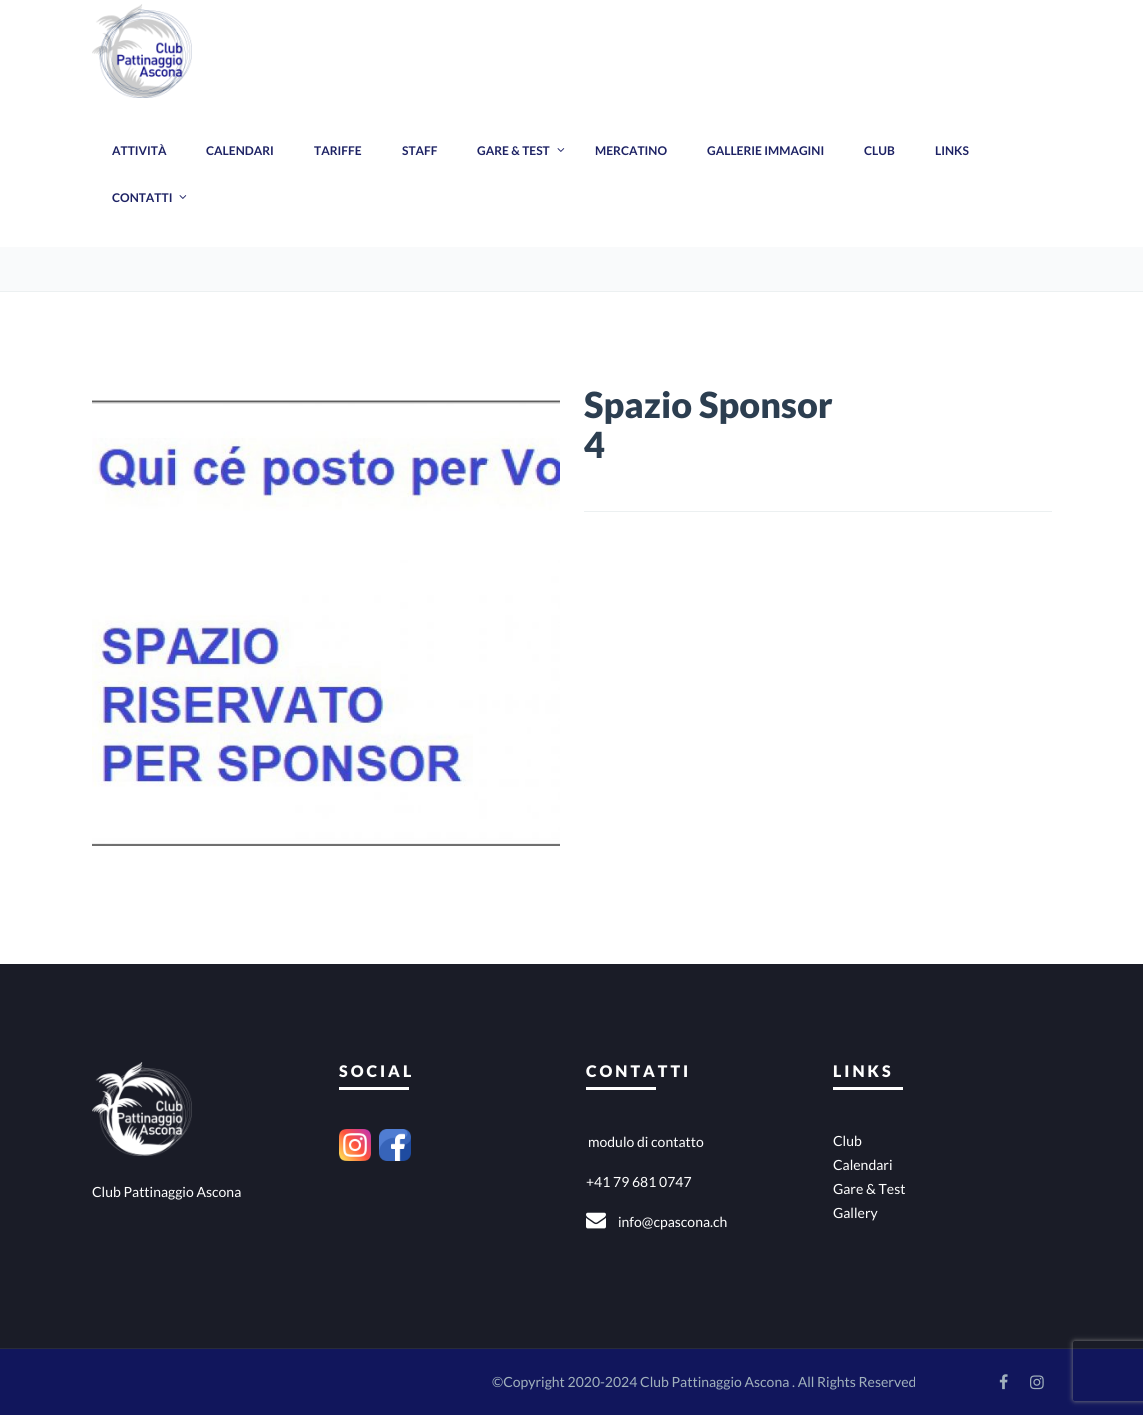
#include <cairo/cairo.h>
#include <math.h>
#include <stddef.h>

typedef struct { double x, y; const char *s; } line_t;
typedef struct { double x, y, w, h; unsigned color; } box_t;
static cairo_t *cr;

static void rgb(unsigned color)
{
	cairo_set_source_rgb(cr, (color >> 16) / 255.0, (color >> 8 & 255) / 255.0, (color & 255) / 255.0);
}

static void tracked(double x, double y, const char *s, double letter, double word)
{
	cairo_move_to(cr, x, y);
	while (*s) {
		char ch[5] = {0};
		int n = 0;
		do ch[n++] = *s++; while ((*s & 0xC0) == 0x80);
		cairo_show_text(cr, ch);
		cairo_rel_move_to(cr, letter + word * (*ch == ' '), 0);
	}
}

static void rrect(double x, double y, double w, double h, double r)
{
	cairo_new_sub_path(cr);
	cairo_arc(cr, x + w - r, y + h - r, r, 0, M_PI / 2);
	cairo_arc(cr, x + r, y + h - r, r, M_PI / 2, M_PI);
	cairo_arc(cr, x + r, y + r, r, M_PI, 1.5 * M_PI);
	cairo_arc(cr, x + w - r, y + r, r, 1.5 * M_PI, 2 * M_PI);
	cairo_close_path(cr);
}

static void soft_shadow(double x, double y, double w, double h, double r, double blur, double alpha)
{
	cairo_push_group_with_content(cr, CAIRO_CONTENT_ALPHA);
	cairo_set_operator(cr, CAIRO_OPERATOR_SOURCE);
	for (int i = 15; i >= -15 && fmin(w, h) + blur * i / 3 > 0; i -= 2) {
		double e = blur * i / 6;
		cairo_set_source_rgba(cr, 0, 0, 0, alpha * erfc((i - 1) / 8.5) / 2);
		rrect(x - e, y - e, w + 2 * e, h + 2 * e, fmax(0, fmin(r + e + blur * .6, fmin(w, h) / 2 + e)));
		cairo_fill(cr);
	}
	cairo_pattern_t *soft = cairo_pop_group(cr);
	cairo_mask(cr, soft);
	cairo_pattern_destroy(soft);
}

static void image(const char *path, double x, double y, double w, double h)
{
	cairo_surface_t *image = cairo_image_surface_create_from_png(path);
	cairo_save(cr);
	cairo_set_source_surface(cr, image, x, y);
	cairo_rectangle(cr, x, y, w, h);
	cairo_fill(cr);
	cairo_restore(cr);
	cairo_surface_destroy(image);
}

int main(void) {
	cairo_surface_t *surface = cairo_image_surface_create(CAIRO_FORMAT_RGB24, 1143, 1415);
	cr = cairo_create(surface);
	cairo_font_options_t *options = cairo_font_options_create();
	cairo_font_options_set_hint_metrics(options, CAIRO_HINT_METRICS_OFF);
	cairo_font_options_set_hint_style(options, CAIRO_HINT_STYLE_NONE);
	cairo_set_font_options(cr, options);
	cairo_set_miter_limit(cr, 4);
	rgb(0xffffff);
	cairo_paint(cr);
	image("img/1.png", 92, 4, 100, 94);
	image("img/2.png", 557, 148, 8, 4);
	image("img/2.png", 179, 195, 8, 4);
	rgb(0xf9fafb);
	cairo_rectangle(cr, 0, 247, 1143, 44);
	cairo_fill(cr);
	rgb(0xecf0f1);
	cairo_rectangle(cr, 0, 291, 1143, 1);
	cairo_fill(cr);
	image("img/3.png", 860, 228, 6, 10);
	image("img/3.png", 926, 228, 6, 10);
	image("img/4.png", 92, 400, 468, 446);
	cairo_rectangle(cr, 584, 511, 468, 1);
	cairo_fill(cr);
	rgb(0x1a1c27);
	cairo_rectangle(cr, 0, 964, 1143, 384);
	cairo_fill(cr);
	image("img/5.png", 92, 1062, 100, 94);
	rgb(0xffffff);
	cairo_rectangle(cr, 339, 1087, 70, 3);
	cairo_fill(cr);
	image("img/6.png", 339, 1129, 32, 32);
	image("img/7.png", 379, 1129, 32, 32);
	cairo_rectangle(cr, 586, 1087, 70, 3);
	cairo_fill(cr);
	image("img/8.png", 586, 1212, 20, 17);
	{
		static const box_t items[] = {
			{833, 1087, 70, 3, 0xffffff},
			{0, 1349, 1143, 66, 0x11165c},
			{0, 1348, 1143, 1, 0x282b39},
		};
		for (size_t i = 0; i < sizeof items / sizeof *items; i++) {
			rgb(items[i].color);
			cairo_rectangle(cr, items[i].x, items[i].y, items[i].w, items[i].h);
			cairo_fill(cr);
		}
	}
	image("img/9.png", 999, 1374, 9, 16);
	image("img/10.png", 1030, 1375, 14, 15);
	cairo_save(cr);
	cairo_set_fill_rule(cr, CAIRO_FILL_RULE_EVEN_ODD);
	cairo_new_path(cr);
	cairo_move_to(cr, 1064, 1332);
	cairo_line_to(cr, 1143, 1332);
	cairo_line_to(cr, 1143, 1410);
	cairo_line_to(cr, 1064, 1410);
	cairo_close_path(cr);
	cairo_move_to(cr, 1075, 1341);
	cairo_line_to(cr, 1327, 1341);
	cairo_curve_to(cr, 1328, 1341, 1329, 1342, 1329, 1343);
	cairo_line_to(cr, 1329, 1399);
	cairo_curve_to(cr, 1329, 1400, 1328, 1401, 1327, 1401);
	cairo_line_to(cr, 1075, 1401);
	cairo_curve_to(cr, 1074, 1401, 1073, 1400, 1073, 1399);
	cairo_line_to(cr, 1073, 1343);
	cairo_curve_to(cr, 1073, 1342, 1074, 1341, 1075, 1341);
	cairo_close_path(cr);
	cairo_clip(cr);
	rgb(0x808080);
	soft_shadow(1073, 1341, 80, 60, 2, 2.5, 1);
	cairo_restore(cr);
	cairo_select_font_face(cr, "Lato", CAIRO_FONT_SLANT_NORMAL, CAIRO_FONT_WEIGHT_BOLD);
	cairo_set_font_size(cr, 12);
	rgb(0x1d2264);
	{
		static const line_t items[] = {
			{112, 155, "ATTIVITÀ"},
			{206, 155, "CALENDARI"},
			{314, 155, "TARIFFE"},
			{402, 155, "STAFF"},
			{477, 155, "GARE & TEST"},
			{595, 155, "MERCATINO"},
			{707, 155, "GALLERIE IMMAGINI"},
			{864, 155, "CLUB"},
			{935, 155, "LINKS"},
			{112, 202, "CONTATTI"},
		};
		for (size_t i = 0; i < sizeof items / sizeof *items; i++) {
			cairo_move_to(cr, items[i].x, items[i].y);
			cairo_show_text(cr, items[i].s);
		}
	}
	cairo_select_font_face(cr, "Lato Black", CAIRO_FONT_SLANT_NORMAL, CAIRO_FONT_WEIGHT_NORMAL);
	cairo_set_font_size(cr, 36);
	rgb(0x2c3e50);
	cairo_move_to(cr, 584, 418);
	cairo_show_text(cr, "Spazio Sponsor");
	cairo_move_to(cr, 584, 458);
	cairo_show_text(cr, "4");
	cairo_select_font_face(cr, "Lato", CAIRO_FONT_SLANT_NORMAL, CAIRO_FONT_WEIGHT_NORMAL);
	cairo_set_font_size(cr, 14);
	rgb(0xffffff);
	cairo_move_to(cr, 92, 1197);
	cairo_show_text(cr, "Club Pattinaggio Ascona");
	cairo_select_font_face(cr, "Lato Black", CAIRO_FONT_SLANT_NORMAL, CAIRO_FONT_WEIGHT_NORMAL);
	cairo_set_font_size(cr, 16);
	tracked(339, 1077, "SOCIAL", 3, 0);
	tracked(586, 1077, "CONTATTI", 3, 0);
	cairo_select_font_face(cr, "Lato", CAIRO_FONT_SLANT_NORMAL, CAIRO_FONT_WEIGHT_NORMAL);
	cairo_set_font_size(cr, 14);
	{
		static const line_t items[] = {
			{588, 1147, "modulo di contatto"},
			{586, 1187, "+41 79 681 0747"},
			{618, 1227, "info@cpascona.ch"},
		};
		for (size_t i = 0; i < sizeof items / sizeof *items; i++) {
			cairo_move_to(cr, items[i].x, items[i].y);
			cairo_show_text(cr, items[i].s);
		}
	}
	cairo_select_font_face(cr, "Lato Black", CAIRO_FONT_SLANT_NORMAL, CAIRO_FONT_WEIGHT_NORMAL);
	cairo_set_font_size(cr, 16);
	tracked(833, 1077, "LINKS", 3, 0);
	cairo_select_font_face(cr, "Lato", CAIRO_FONT_SLANT_NORMAL, CAIRO_FONT_WEIGHT_NORMAL);
	cairo_set_font_size(cr, 14);
	{
		static const line_t items[] = {
			{833, 1146, "Club"},
			{833, 1170, "Calendari"},
			{833, 1194, "Gare & Test"},
			{833, 1218, "Gallery"},
		};
		for (size_t i = 0; i < sizeof items / sizeof *items; i++) {
			cairo_move_to(cr, items[i].x, items[i].y);
			cairo_show_text(cr, items[i].s);
		}
	}
	rgb(0xa1b1bc);
	cairo_move_to(cr, 492, 1387);
	cairo_show_text(cr, "©Copyright 2020-2024 Club Pattinaggio Ascona . All Rights Reserved");
	cairo_surface_write_to_png(surface, "page.png");
	cairo_font_options_destroy(options);
	cairo_destroy(cr);
	cairo_surface_destroy(surface);
	return 0;
}
